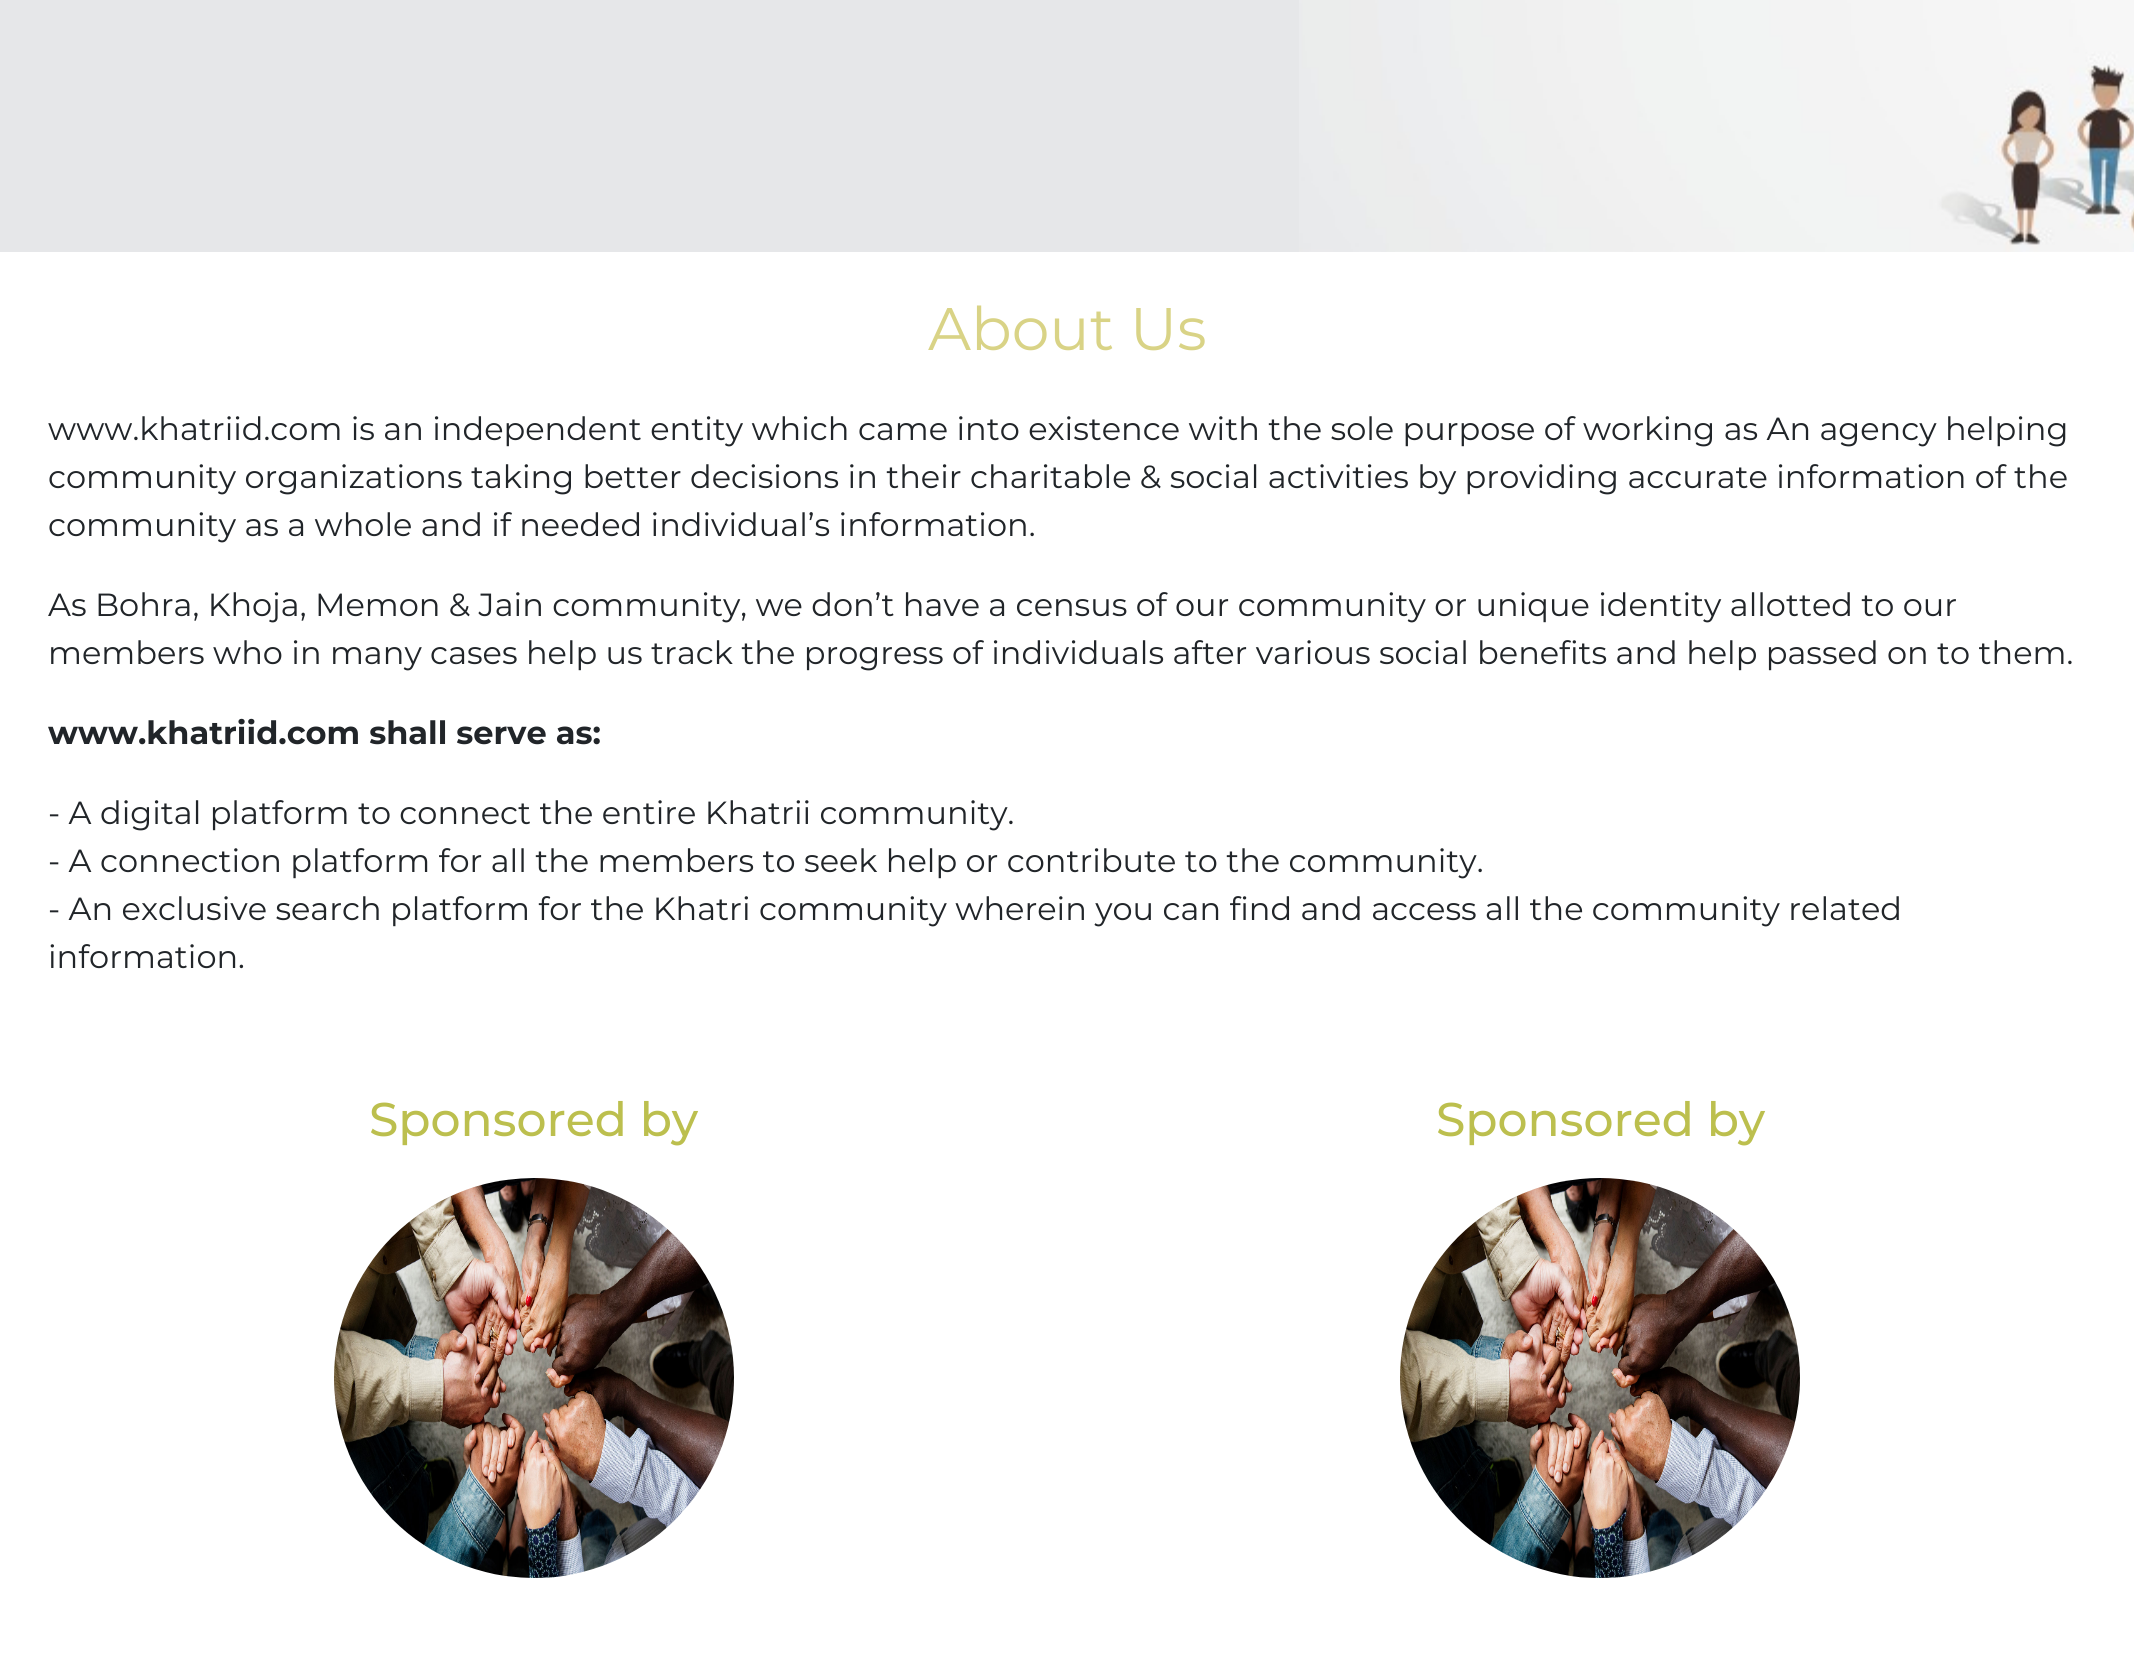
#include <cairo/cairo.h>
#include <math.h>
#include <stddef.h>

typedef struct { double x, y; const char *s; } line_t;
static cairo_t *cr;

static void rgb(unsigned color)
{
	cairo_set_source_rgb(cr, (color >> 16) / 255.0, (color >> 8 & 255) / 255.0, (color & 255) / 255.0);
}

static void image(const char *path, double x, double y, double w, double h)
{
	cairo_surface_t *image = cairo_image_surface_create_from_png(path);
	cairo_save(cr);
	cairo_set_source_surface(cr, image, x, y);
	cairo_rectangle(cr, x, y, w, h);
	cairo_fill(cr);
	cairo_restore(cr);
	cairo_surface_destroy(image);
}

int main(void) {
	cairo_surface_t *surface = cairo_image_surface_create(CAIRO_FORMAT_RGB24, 2134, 1655);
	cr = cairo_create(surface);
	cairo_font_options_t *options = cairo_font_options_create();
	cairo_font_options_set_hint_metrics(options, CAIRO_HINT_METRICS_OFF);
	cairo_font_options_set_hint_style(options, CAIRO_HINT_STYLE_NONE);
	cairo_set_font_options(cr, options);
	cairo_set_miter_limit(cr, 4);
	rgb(0xffffff);
	cairo_paint(cr);
	rgb(0xe6e7e9);
	cairo_rectangle(cr, 0, 0, 1299, 252);
	cairo_fill(cr);
	image("img/1.png", 1299, 0, 835, 252);
	image("img/2.png", 334, 1178, 400, 400);
	image("img/3.png", 1400, 1178, 400, 400);
	cairo_select_font_face(cr, "Montserrat", CAIRO_FONT_SLANT_NORMAL, CAIRO_FONT_WEIGHT_NORMAL);
	cairo_set_font_size(cr, 60);
	rgb(0xd9d386);
	cairo_move_to(cr, 928, 350);
	cairo_show_text(cr, "About Us");
	cairo_set_font_size(cr, 32);
	rgb(0x212529);
	{
		static const line_t items[] = {
			{48, 440, "www.khatriid.com is an independent entity which came into existence with the sole purpose of working as An agency helping"},
			{48, 488, "community organizations taking better decisions in their charitable & social activities by providing accurate information of the"},
			{48, 536, "community as a whole and if needed individual’s information."},
			{48, 616, "As Bohra, Khoja, Memon & Jain community, we don’t have a census of our community or unique identity allotted to our"},
			{48, 664, "members who in many cases help us track the progress of individuals after various social benefits and help passed on to them."},
		};
		for (size_t i = 0; i < sizeof items / sizeof *items; i++) {
			cairo_move_to(cr, items[i].x, items[i].y);
			cairo_show_text(cr, items[i].s);
		}
	}
	cairo_select_font_face(cr, "Montserrat", CAIRO_FONT_SLANT_NORMAL, CAIRO_FONT_WEIGHT_BOLD);
	cairo_move_to(cr, 48, 744);
	cairo_show_text(cr, "www.khatriid.com shall serve as:");
	cairo_select_font_face(cr, "Montserrat", CAIRO_FONT_SLANT_NORMAL, CAIRO_FONT_WEIGHT_NORMAL);
	{
		static const line_t items[] = {
			{48, 824, "- A digital platform to connect the entire Khatrii community."},
			{48, 872, "- A connection platform for all the members to seek help or contribute to the community."},
			{48, 920, "- An exclusive search platform for the Khatri community wherein you can find and access all the community related"},
			{48, 968, "information."},
		};
		for (size_t i = 0; i < sizeof items / sizeof *items; i++) {
			cairo_move_to(cr, items[i].x, items[i].y);
			cairo_show_text(cr, items[i].s);
		}
	}
	cairo_select_font_face(cr, "Montserrat Medium", CAIRO_FONT_SLANT_NORMAL, CAIRO_FONT_WEIGHT_NORMAL);
	cairo_set_font_size(cr, 47.25);
	rgb(0xbcbf4e);
	cairo_move_to(cr, 369, 1136);
	cairo_show_text(cr, "Sponsored by");
	cairo_move_to(cr, 1436, 1136);
	cairo_show_text(cr, "Sponsored by");
	cairo_surface_write_to_png(surface, "page.png");
	cairo_font_options_destroy(options);
	cairo_destroy(cr);
	cairo_surface_destroy(surface);
	return 0;
}
